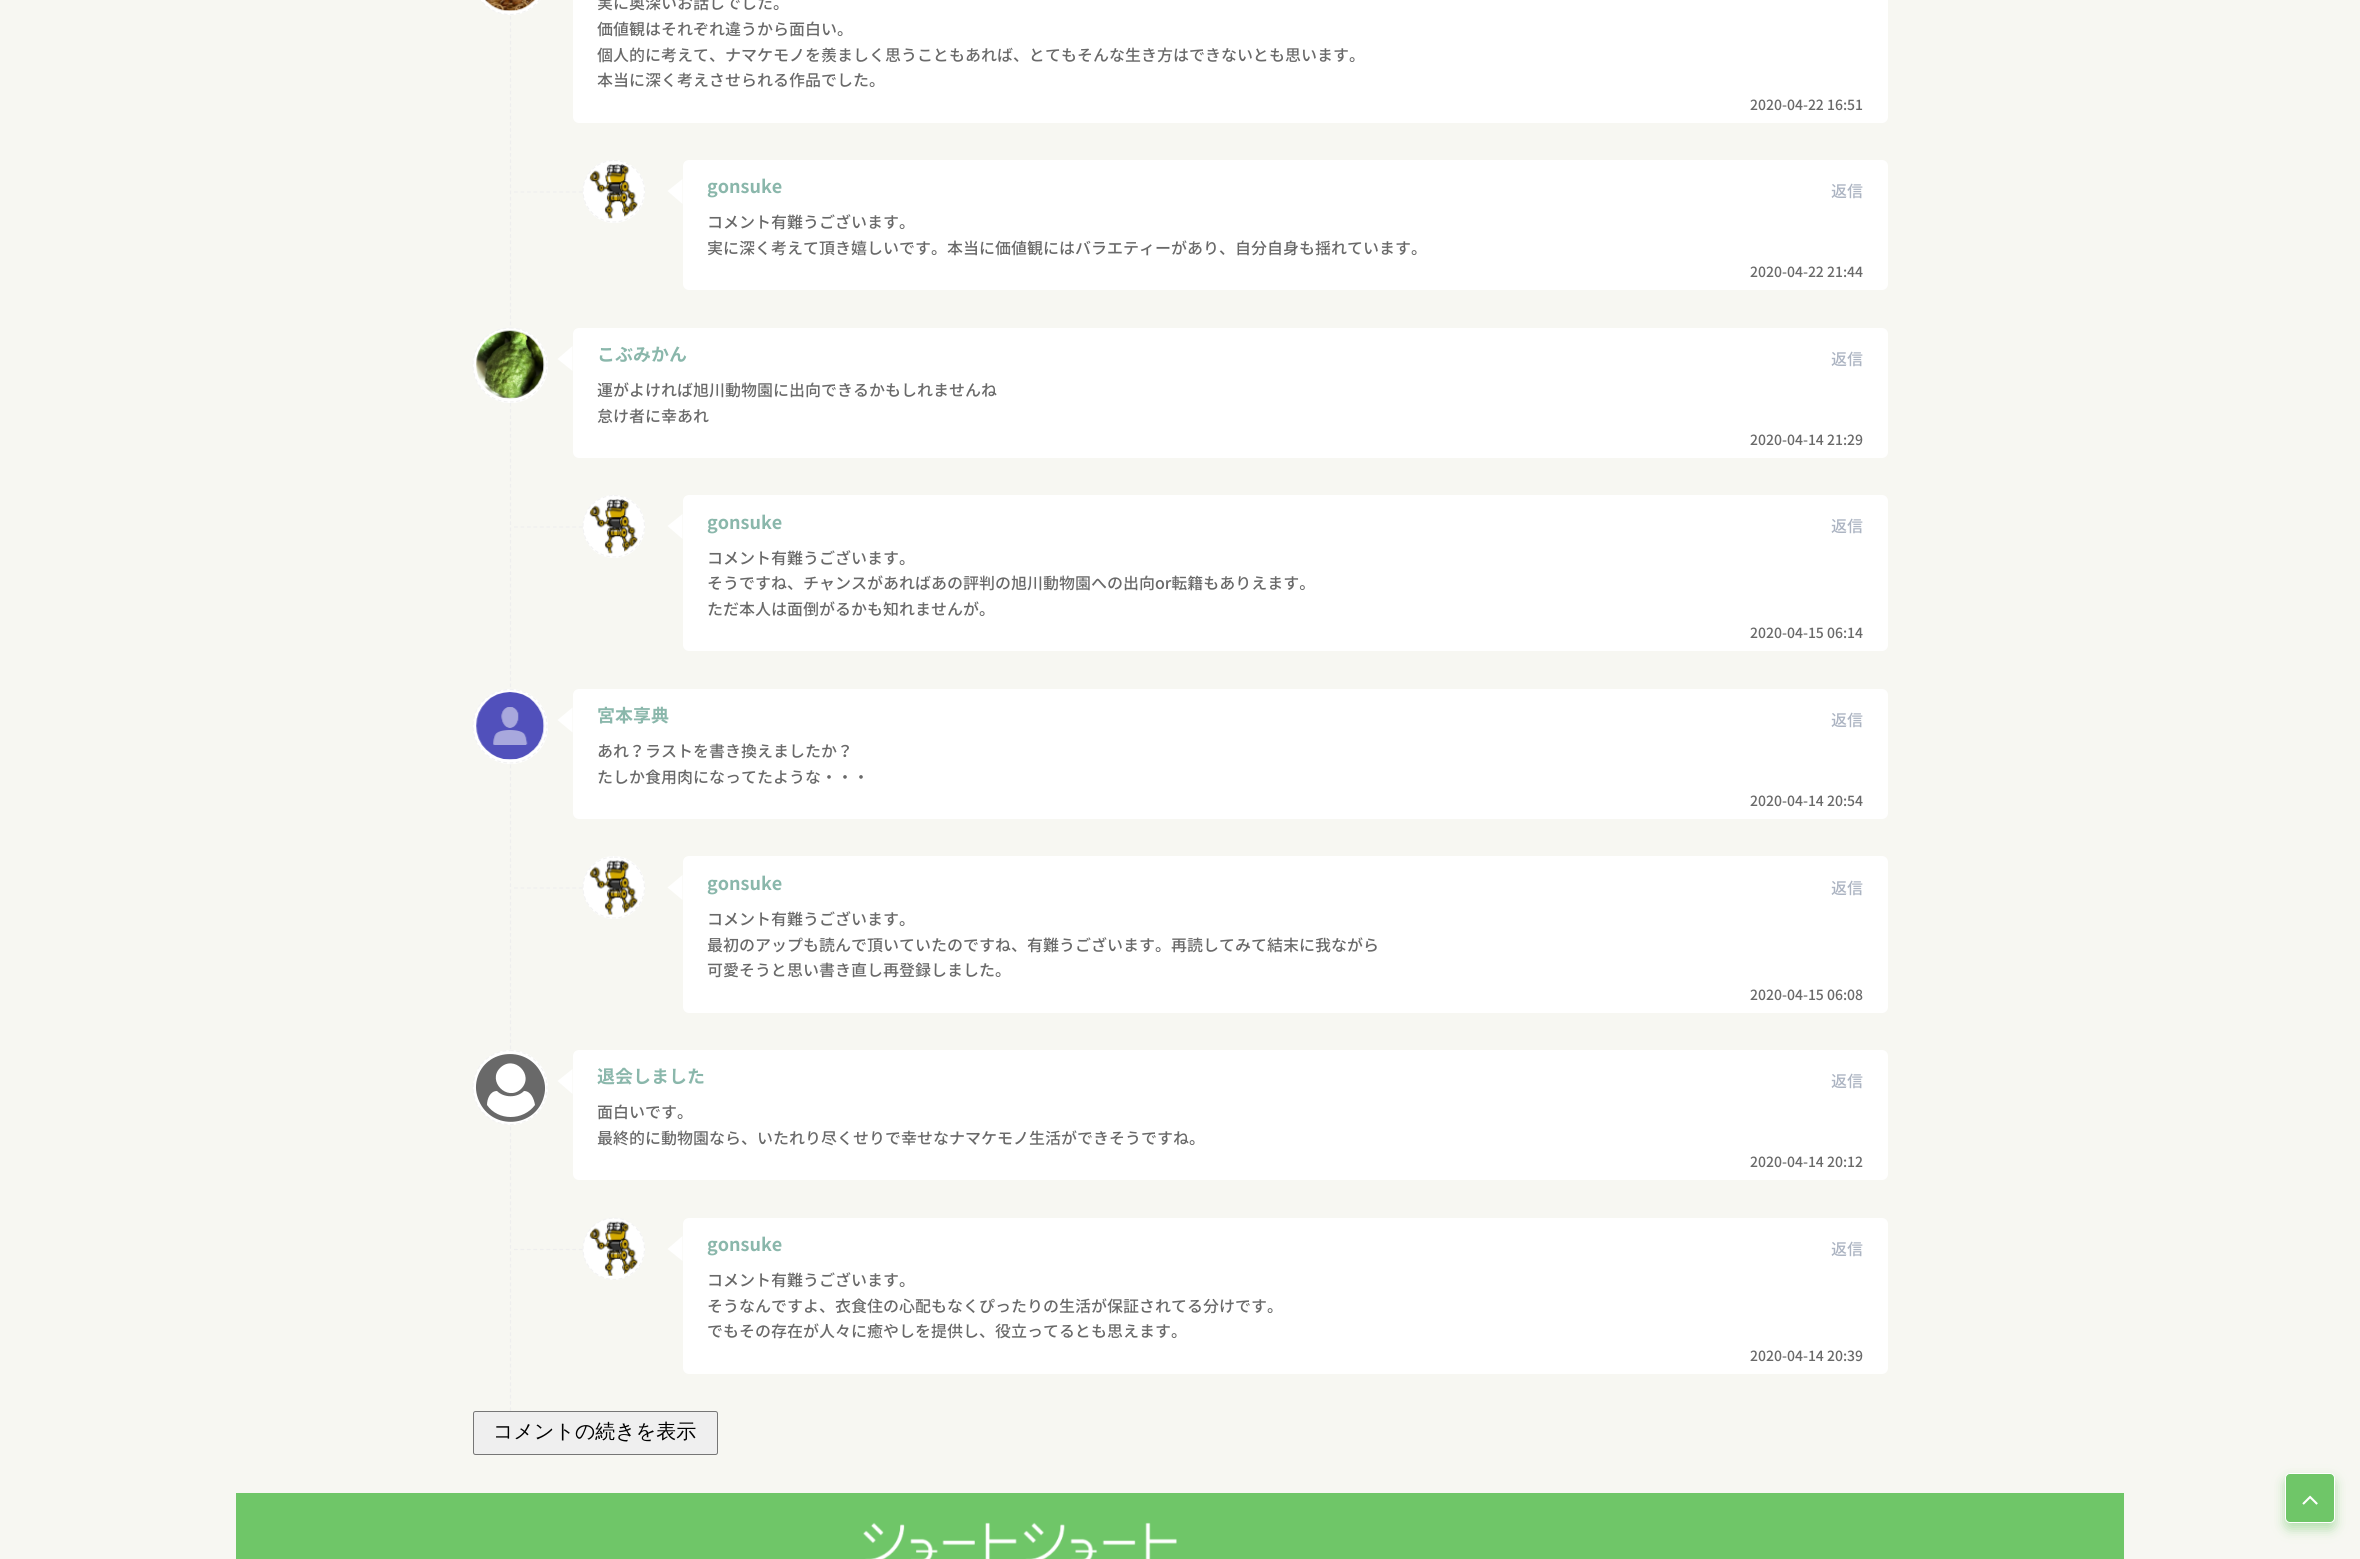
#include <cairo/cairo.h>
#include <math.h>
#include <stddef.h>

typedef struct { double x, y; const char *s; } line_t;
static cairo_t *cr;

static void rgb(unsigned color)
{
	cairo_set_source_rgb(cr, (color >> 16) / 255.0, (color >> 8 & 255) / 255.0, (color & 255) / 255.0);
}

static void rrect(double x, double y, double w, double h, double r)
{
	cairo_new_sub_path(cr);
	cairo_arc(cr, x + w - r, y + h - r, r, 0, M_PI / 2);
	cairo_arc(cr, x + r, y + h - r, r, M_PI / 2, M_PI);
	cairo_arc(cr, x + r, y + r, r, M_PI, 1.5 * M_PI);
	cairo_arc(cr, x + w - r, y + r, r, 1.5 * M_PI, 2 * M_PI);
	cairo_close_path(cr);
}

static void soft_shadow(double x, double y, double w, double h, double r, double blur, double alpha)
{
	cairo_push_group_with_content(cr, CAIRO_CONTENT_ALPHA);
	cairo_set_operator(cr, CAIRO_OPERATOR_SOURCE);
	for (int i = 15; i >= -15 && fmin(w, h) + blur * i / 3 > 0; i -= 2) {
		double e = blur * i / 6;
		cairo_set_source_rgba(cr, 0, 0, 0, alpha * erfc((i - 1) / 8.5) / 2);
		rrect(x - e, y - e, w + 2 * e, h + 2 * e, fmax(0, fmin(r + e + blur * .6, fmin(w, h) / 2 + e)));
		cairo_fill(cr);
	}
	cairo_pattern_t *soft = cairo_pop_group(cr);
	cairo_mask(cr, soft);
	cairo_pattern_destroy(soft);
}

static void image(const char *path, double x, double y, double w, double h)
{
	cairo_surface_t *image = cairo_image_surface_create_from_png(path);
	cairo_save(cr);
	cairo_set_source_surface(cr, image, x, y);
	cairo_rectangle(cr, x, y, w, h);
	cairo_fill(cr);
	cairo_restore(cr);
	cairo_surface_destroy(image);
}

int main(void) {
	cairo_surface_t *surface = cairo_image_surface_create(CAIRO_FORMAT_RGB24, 2360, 1559);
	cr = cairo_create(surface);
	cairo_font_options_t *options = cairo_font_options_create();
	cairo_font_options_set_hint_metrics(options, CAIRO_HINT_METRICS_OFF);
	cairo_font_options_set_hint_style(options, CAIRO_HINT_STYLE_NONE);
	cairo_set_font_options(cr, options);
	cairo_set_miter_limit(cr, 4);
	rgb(0xf7f7f2);
	cairo_paint(cr);
	cairo_new_path(cr);
	cairo_move_to(cr, 510.5, -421);
	cairo_line_to(cr, 510.5, 1455);
	rgb(0xeeeeee);
	cairo_set_line_width(cr, 1.2);
	cairo_set_dash(cr, (double[]){3.75, 2.49}, 2, 0);
	cairo_stroke(cr);
	rgb(0xffffff);
	rrect(473, -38, 75, 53, 37.5);
	cairo_fill(cr);
	cairo_new_path(cr);
	cairo_move_to(cr, 510, -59.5);
	cairo_curve_to(cr, 530.5, -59.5, 547, -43, 547, -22.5);
	cairo_curve_to(cr, 547, -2, 530.5, 14.5, 510, 14.5);
	cairo_curve_to(cr, 489.5, 14.5, 473, -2, 473, -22.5);
	cairo_curve_to(cr, 473, -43, 489.5, -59.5, 510, -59.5);
	cairo_close_path(cr);
	rgb(0xf2f2f2);
	cairo_set_dash(cr, (double[]){3.75, 2.5}, 2, 0);
	cairo_stroke(cr);
	image("img/1.png", 485, 0, 51, 11);
	rgb(0xffffff);
	rrect(573, -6, 1315, 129, 6);
	cairo_fill(cr);
	cairo_new_path(cr);
	cairo_move_to(cr, 514, 192);
	cairo_line_to(cr, 589, 192);
	rgb(0xeeeeee);
	cairo_set_dash(cr, (double[]){3.75, 2.73}, 2, 0);
	cairo_stroke(cr);
	rgb(0xffffff);
	rrect(583, 160, 62, 63, 31);
	cairo_fill(cr);
	cairo_new_path(cr);
	cairo_move_to(cr, 614, 160.5);
	cairo_curve_to(cr, 630.5, 160.5, 644.5, 174.5, 644.5, 191);
	cairo_curve_to(cr, 644.5, 208, 630.5, 222, 614, 222);
	cairo_curve_to(cr, 597, 222, 583, 208, 583, 191);
	cairo_curve_to(cr, 583, 174.5, 597, 160.5, 614, 160.5);
	cairo_close_path(cr);
	rgb(0xf2f2f2);
	cairo_set_dash(cr, (double[]){3.75, 2.5}, 2, 0);
	cairo_stroke(cr);
	image("img/2.png", 589, 164, 49, 55);
	rgb(0xffffff);
	rrect(683, 160, 1205, 130, 6);
	cairo_fill(cr);
	cairo_new_path(cr);
	cairo_move_to(cr, 682.5, 179);
	cairo_line_to(cr, 682.5, 204);
	cairo_line_to(cr, 667.5, 191);
	cairo_close_path(cr);
	cairo_fill(cr);
	cairo_arc(cr, 510.5, 365.5, 37.5, 0, 2 * M_PI);
	cairo_fill(cr);
	cairo_new_path(cr);
	cairo_move_to(cr, 510, 328);
	cairo_curve_to(cr, 530.5, 328, 547, 344.5, 547, 365);
	cairo_curve_to(cr, 547, 385.5, 530.5, 402, 510, 402);
	cairo_curve_to(cr, 489.5, 402, 473, 385.5, 473, 365);
	cairo_curve_to(cr, 473, 344.5, 489.5, 328, 510, 328);
	cairo_close_path(cr);
	rgb(0xf2f2f2);
	cairo_stroke(cr);
	image("img/3.png", 476, 330, 69, 69);
	rgb(0xffffff);
	rrect(573, 328, 1315, 130, 6);
	cairo_fill(cr);
	cairo_new_path(cr);
	cairo_move_to(cr, 572.5, 346);
	cairo_line_to(cr, 572.5, 371);
	cairo_line_to(cr, 557.5, 359);
	cairo_close_path(cr);
	cairo_fill(cr);
	cairo_new_path(cr);
	cairo_move_to(cr, 514, 527);
	cairo_line_to(cr, 589, 527);
	rgb(0xeeeeee);
	cairo_set_dash(cr, (double[]){3.75, 2.73}, 2, 0);
	cairo_stroke(cr);
	rgb(0xffffff);
	rrect(583, 495, 62, 63, 31);
	cairo_fill(cr);
	cairo_new_path(cr);
	cairo_move_to(cr, 614, 495.5);
	cairo_curve_to(cr, 630.5, 495.5, 644.5, 509.5, 644.5, 526);
	cairo_curve_to(cr, 644.5, 543, 630.5, 557, 614, 557);
	cairo_curve_to(cr, 597, 557, 583, 543, 583, 526);
	cairo_curve_to(cr, 583, 509.5, 597, 495.5, 614, 495.5);
	cairo_close_path(cr);
	rgb(0xf2f2f2);
	cairo_set_dash(cr, (double[]){3.75, 2.5}, 2, 0);
	cairo_stroke(cr);
	image("img/4.png", 589, 499, 49, 55);
	rgb(0xffffff);
	rrect(683, 495, 1205, 156, 6);
	cairo_fill(cr);
	cairo_new_path(cr);
	cairo_move_to(cr, 682.5, 514);
	cairo_line_to(cr, 682.5, 539);
	cairo_line_to(cr, 667.5, 526);
	cairo_close_path(cr);
	cairo_fill(cr);
	cairo_arc(cr, 510.5, 726.5, 37.5, 0, 2 * M_PI);
	cairo_fill(cr);
	cairo_new_path(cr);
	cairo_move_to(cr, 510, 689.5);
	cairo_curve_to(cr, 530.5, 689.5, 547, 706, 547, 726);
	cairo_curve_to(cr, 547, 746.5, 530.5, 763, 510, 763);
	cairo_curve_to(cr, 489.5, 763, 473, 746.5, 473, 726);
	cairo_curve_to(cr, 473, 706, 489.5, 689.5, 510, 689.5);
	cairo_close_path(cr);
	rgb(0xf2f2f2);
	cairo_stroke(cr);
	image("img/5.png", 476, 692, 69, 68);
	rgb(0xffffff);
	rrect(573, 689, 1315, 130, 6);
	cairo_fill(cr);
	cairo_new_path(cr);
	cairo_move_to(cr, 572.5, 707.5);
	cairo_line_to(cr, 572.5, 732.5);
	cairo_line_to(cr, 557.5, 720);
	cairo_close_path(cr);
	cairo_fill(cr);
	cairo_new_path(cr);
	cairo_move_to(cr, 514, 888);
	cairo_line_to(cr, 589, 888);
	rgb(0xeeeeee);
	cairo_set_dash(cr, (double[]){3.75, 2.73}, 2, 0);
	cairo_stroke(cr);
	rgb(0xffffff);
	rrect(583, 856, 62, 63, 31);
	cairo_fill(cr);
	cairo_new_path(cr);
	cairo_move_to(cr, 614, 857);
	cairo_curve_to(cr, 630.5, 857, 644.5, 870.5, 644.5, 887.5);
	cairo_curve_to(cr, 644.5, 904.5, 630.5, 918, 614, 918);
	cairo_curve_to(cr, 597, 918, 583, 904.5, 583, 887.5);
	cairo_curve_to(cr, 583, 870.5, 597, 857, 614, 857);
	cairo_close_path(cr);
	rgb(0xf2f2f2);
	cairo_set_dash(cr, (double[]){3.75, 2.5}, 2, 0);
	cairo_stroke(cr);
	image("img/6.png", 589, 860, 49, 55);
	rgb(0xffffff);
	rrect(683, 856, 1205, 157, 6);
	cairo_fill(cr);
	cairo_new_path(cr);
	cairo_move_to(cr, 682.5, 875);
	cairo_line_to(cr, 682.5, 900);
	cairo_line_to(cr, 667.5, 887.5);
	cairo_close_path(cr);
	cairo_fill(cr);
	cairo_arc(cr, 510.5, 1087.5, 37.5, 0, 2 * M_PI);
	cairo_fill(cr);
	cairo_new_path(cr);
	cairo_move_to(cr, 510, 1050.5);
	cairo_curve_to(cr, 530.5, 1050.5, 547, 1067, 547, 1087.5);
	cairo_curve_to(cr, 547, 1108, 530.5, 1124.5, 510, 1124.5);
	cairo_curve_to(cr, 489.5, 1124.5, 473, 1108, 473, 1087.5);
	cairo_curve_to(cr, 473, 1067, 489.5, 1050.5, 510, 1050.5);
	cairo_close_path(cr);
	rgb(0xf2f2f2);
	cairo_stroke(cr);
	rgb(0x696969);
	cairo_new_path(cr);
	cairo_move_to(cr, 535, 1105);
	cairo_curve_to(cr, 534, 1099, 531, 1091, 524, 1091);
	cairo_curve_to(cr, 517, 1098, 504, 1098, 497, 1091);
	cairo_curve_to(cr, 490, 1091, 487, 1099, 487, 1105);
	cairo_curve_to(cr, 498, 1121, 523, 1121, 535, 1105);
	cairo_close_path(cr);
	cairo_move_to(cr, 521, 1089);
	cairo_curve_to(cr, 535, 1075, 514, 1054, 500, 1068);
	cairo_curve_to(cr, 487, 1081, 507, 1102, 521, 1089);
	cairo_close_path(cr);
	cairo_move_to(cr, 542, 1075);
	cairo_curve_to(cr, 545, 1081, 546, 1089, 544, 1096);
	cairo_curve_to(cr, 536, 1128, 492, 1131, 479, 1101);
	cairo_curve_to(cr, 476, 1094, 475, 1087, 477, 1079);
	cairo_curve_to(cr, 485, 1048, 529, 1045, 542, 1075);
	cairo_close_path(cr);
	cairo_fill(cr);
	rgb(0xffffff);
	rrect(573, 1050, 1315, 130, 6);
	cairo_fill(cr);
	cairo_new_path(cr);
	cairo_move_to(cr, 572.5, 1069);
	cairo_line_to(cr, 572.5, 1094);
	cairo_line_to(cr, 557.5, 1081);
	cairo_close_path(cr);
	cairo_fill(cr);
	cairo_new_path(cr);
	cairo_move_to(cr, 514, 1249.5);
	cairo_line_to(cr, 589, 1249.5);
	rgb(0xeeeeee);
	cairo_set_dash(cr, (double[]){3.75, 2.73}, 2, 0);
	cairo_stroke(cr);
	rgb(0xffffff);
	cairo_arc(cr, 614, 1249, 31, 0, 2 * M_PI);
	cairo_fill(cr);
	cairo_new_path(cr);
	cairo_move_to(cr, 614, 1218);
	cairo_curve_to(cr, 630.5, 1218, 644.5, 1232, 644.5, 1249);
	cairo_curve_to(cr, 644.5, 1265.5, 630.5, 1279.5, 614, 1279.5);
	cairo_curve_to(cr, 597, 1279.5, 583, 1265.5, 583, 1249);
	cairo_curve_to(cr, 583, 1232, 597, 1218, 614, 1218);
	cairo_close_path(cr);
	rgb(0xf2f2f2);
	cairo_set_dash(cr, (double[]){3.75, 2.5}, 2, 0);
	cairo_stroke(cr);
	image("img/7.png", 589, 1221, 49, 55);
	rgb(0xffffff);
	rrect(683, 1218, 1205, 156, 6);
	cairo_fill(cr);
	cairo_new_path(cr);
	cairo_move_to(cr, 682.5, 1236);
	cairo_line_to(cr, 682.5, 1261);
	cairo_line_to(cr, 667.5, 1249);
	cairo_close_path(cr);
	cairo_fill(cr);
	rgb(0xefefef);
	rrect(473.5, 1411.5, 244, 43, 2);
	cairo_fill_preserve(cr);
	rgb(0x767676);
	cairo_set_line_width(cr, 1);
	cairo_set_dash(cr, NULL, 0, 0);
	cairo_stroke(cr);
	rgb(0x6fc668);
	cairo_rectangle(cr, 236, 1493, 1888, 66);
	cairo_fill(cr);
	image("img/8.png", 863, 1522, 314, 37);
	rgb(0x6fc668);
	soft_shadow(2285, 1479, 50, 50, 5, 6, 0.5);
	rgb(0x6fc668);
	rrect(2285.5, 1473.5, 49, 49, 4.5);
	cairo_fill_preserve(cr);
	rgb(0xffffff);
	cairo_stroke(cr);
	image("img/9.png", 2302, 1495, 16, 10);
	cairo_select_font_face(cr, "Noto Sans JP Medium", CAIRO_FONT_SLANT_NORMAL, CAIRO_FONT_WEIGHT_NORMAL);
	cairo_set_font_size(cr, 16);
	rgb(0x696969);
	{
		static const line_t items[] = {
			{597, 9, "実に奥深いお話しでした。"},
			{597, 35, "価値観はそれぞれ違うから面白い。"},
			{597, 61, "個人的に考えて、ナマケモノを羨ましく思うこともあれば、とてもそんな生き方はできないとも思います。"},
			{597, 86, "本当に深く考えさせられる作品でした。"},
		};
		for (size_t i = 0; i < sizeof items / sizeof *items; i++) {
			cairo_move_to(cr, items[i].x, items[i].y);
			cairo_show_text(cr, items[i].s);
		}
	}
	cairo_set_font_size(cr, 14);
	cairo_move_to(cr, 1750, 110);
	cairo_show_text(cr, "2020-04-22 16:51");
	cairo_select_font_face(cr, "Noto Sans JP", CAIRO_FONT_SLANT_NORMAL, CAIRO_FONT_WEIGHT_BOLD);
	cairo_set_font_size(cr, 18);
	rgb(0x8ab7ab);
	cairo_move_to(cr, 707, 193);
	cairo_show_text(cr, "gonsuke");
	cairo_select_font_face(cr, "Noto Sans JP Medium", CAIRO_FONT_SLANT_NORMAL, CAIRO_FONT_WEIGHT_NORMAL);
	cairo_set_font_size(cr, 16);
	rgb(0xacb4c2);
	cairo_move_to(cr, 1831, 197);
	cairo_show_text(cr, "返信");
	rgb(0x696969);
	cairo_move_to(cr, 707, 228);
	cairo_show_text(cr, "コメント有難うございます。");
	cairo_move_to(cr, 707, 254);
	cairo_show_text(cr, "実に深く考えて頂き嬉しいです。本当に価値観にはバラエティーがあり、自分自身も揺れています。");
	cairo_set_font_size(cr, 14);
	cairo_move_to(cr, 1750, 277);
	cairo_show_text(cr, "2020-04-22 21:44");
	cairo_select_font_face(cr, "Noto Sans JP", CAIRO_FONT_SLANT_NORMAL, CAIRO_FONT_WEIGHT_BOLD);
	cairo_set_font_size(cr, 18);
	rgb(0x8ab7ab);
	cairo_move_to(cr, 597, 361);
	cairo_show_text(cr, "こぶみかん");
	cairo_select_font_face(cr, "Noto Sans JP Medium", CAIRO_FONT_SLANT_NORMAL, CAIRO_FONT_WEIGHT_NORMAL);
	cairo_set_font_size(cr, 16);
	rgb(0xacb4c2);
	cairo_move_to(cr, 1831, 365);
	cairo_show_text(cr, "返信");
	rgb(0x696969);
	cairo_move_to(cr, 597, 396);
	cairo_show_text(cr, "運がよければ旭川動物園に出向できるかもしれませんね");
	cairo_move_to(cr, 597, 422);
	cairo_show_text(cr, "怠け者に幸あれ");
	cairo_set_font_size(cr, 14);
	cairo_move_to(cr, 1750, 445);
	cairo_show_text(cr, "2020-04-14 21:29");
	cairo_select_font_face(cr, "Noto Sans JP", CAIRO_FONT_SLANT_NORMAL, CAIRO_FONT_WEIGHT_BOLD);
	cairo_set_font_size(cr, 18);
	rgb(0x8ab7ab);
	cairo_move_to(cr, 707, 529);
	cairo_show_text(cr, "gonsuke");
	cairo_select_font_face(cr, "Noto Sans JP Medium", CAIRO_FONT_SLANT_NORMAL, CAIRO_FONT_WEIGHT_NORMAL);
	cairo_set_font_size(cr, 16);
	rgb(0xacb4c2);
	cairo_move_to(cr, 1831, 532);
	cairo_show_text(cr, "返信");
	rgb(0x696969);
	{
		static const line_t items[] = {
			{707, 564, "コメント有難うございます。"},
			{707, 589, "そうですね、チャンスがあればあの評判の旭川動物園への出向or転籍もありえます。"},
			{707, 615, "ただ本人は面倒がるかも知れませんが。"},
		};
		for (size_t i = 0; i < sizeof items / sizeof *items; i++) {
			cairo_move_to(cr, items[i].x, items[i].y);
			cairo_show_text(cr, items[i].s);
		}
	}
	cairo_set_font_size(cr, 14);
	cairo_move_to(cr, 1750, 638);
	cairo_show_text(cr, "2020-04-15 06:14");
	cairo_select_font_face(cr, "Noto Sans JP", CAIRO_FONT_SLANT_NORMAL, CAIRO_FONT_WEIGHT_BOLD);
	cairo_set_font_size(cr, 18);
	rgb(0x8ab7ab);
	cairo_move_to(cr, 597, 722);
	cairo_show_text(cr, "宮本享典");
	cairo_select_font_face(cr, "Noto Sans JP Medium", CAIRO_FONT_SLANT_NORMAL, CAIRO_FONT_WEIGHT_NORMAL);
	cairo_set_font_size(cr, 16);
	rgb(0xacb4c2);
	cairo_move_to(cr, 1831, 726);
	cairo_show_text(cr, "返信");
	rgb(0x696969);
	cairo_move_to(cr, 597, 757);
	cairo_show_text(cr, "あれ？ラストを書き換えましたか？");
	cairo_move_to(cr, 597, 783);
	cairo_show_text(cr, "たしか食用肉になってたような・・・");
	cairo_set_font_size(cr, 14);
	cairo_move_to(cr, 1750, 806);
	cairo_show_text(cr, "2020-04-14 20:54");
	cairo_select_font_face(cr, "Noto Sans JP", CAIRO_FONT_SLANT_NORMAL, CAIRO_FONT_WEIGHT_BOLD);
	cairo_set_font_size(cr, 18);
	rgb(0x8ab7ab);
	cairo_move_to(cr, 707, 890);
	cairo_show_text(cr, "gonsuke");
	cairo_select_font_face(cr, "Noto Sans JP Medium", CAIRO_FONT_SLANT_NORMAL, CAIRO_FONT_WEIGHT_NORMAL);
	cairo_set_font_size(cr, 16);
	rgb(0xacb4c2);
	cairo_move_to(cr, 1831, 894);
	cairo_show_text(cr, "返信");
	rgb(0x696969);
	{
		static const line_t items[] = {
			{707, 925, "コメント有難うございます。"},
			{707, 951, "最初のアップも読んで頂いていたのですね、有難うございます。再読してみて結末に我ながら"},
			{707, 976, "可愛そうと思い書き直し再登録しました。"},
		};
		for (size_t i = 0; i < sizeof items / sizeof *items; i++) {
			cairo_move_to(cr, items[i].x, items[i].y);
			cairo_show_text(cr, items[i].s);
		}
	}
	cairo_set_font_size(cr, 14);
	cairo_move_to(cr, 1750, 1000);
	cairo_show_text(cr, "2020-04-15 06:08");
	cairo_select_font_face(cr, "Noto Sans JP", CAIRO_FONT_SLANT_NORMAL, CAIRO_FONT_WEIGHT_BOLD);
	cairo_set_font_size(cr, 18);
	rgb(0x8ab7ab);
	cairo_move_to(cr, 597, 1083);
	cairo_show_text(cr, "退会しました");
	cairo_select_font_face(cr, "Noto Sans JP Medium", CAIRO_FONT_SLANT_NORMAL, CAIRO_FONT_WEIGHT_NORMAL);
	cairo_set_font_size(cr, 16);
	rgb(0xacb4c2);
	cairo_move_to(cr, 1831, 1087);
	cairo_show_text(cr, "返信");
	rgb(0x696969);
	cairo_move_to(cr, 597, 1118);
	cairo_show_text(cr, "面白いです。");
	cairo_move_to(cr, 597, 1144);
	cairo_show_text(cr, "最終的に動物園なら、いたれり尽くせりで幸せなナマケモノ生活ができそうですね。");
	cairo_set_font_size(cr, 14);
	cairo_move_to(cr, 1750, 1167);
	cairo_show_text(cr, "2020-04-14 20:12");
	cairo_select_font_face(cr, "Noto Sans JP", CAIRO_FONT_SLANT_NORMAL, CAIRO_FONT_WEIGHT_BOLD);
	cairo_set_font_size(cr, 18);
	rgb(0x8ab7ab);
	cairo_move_to(cr, 707, 1251);
	cairo_show_text(cr, "gonsuke");
	cairo_select_font_face(cr, "Noto Sans JP Medium", CAIRO_FONT_SLANT_NORMAL, CAIRO_FONT_WEIGHT_NORMAL);
	cairo_set_font_size(cr, 16);
	rgb(0xacb4c2);
	cairo_move_to(cr, 1831, 1255);
	cairo_show_text(cr, "返信");
	rgb(0x696969);
	{
		static const line_t items[] = {
			{707, 1286, "コメント有難うございます。"},
			{707, 1312, "そうなんですよ、衣食住の心配もなくぴったりの生活が保証されてる分けです。"},
			{707, 1337, "でもその存在が人々に癒やしを提供し、役立ってるとも思えます。"},
		};
		for (size_t i = 0; i < sizeof items / sizeof *items; i++) {
			cairo_move_to(cr, items[i].x, items[i].y);
			cairo_show_text(cr, items[i].s);
		}
	}
	cairo_set_font_size(cr, 14);
	cairo_move_to(cr, 1750, 1361);
	cairo_show_text(cr, "2020-04-14 20:39");
	cairo_select_font_face(cr, "WenQuanYi Zen Hei Medium", CAIRO_FONT_SLANT_NORMAL, CAIRO_FONT_WEIGHT_NORMAL);
	cairo_set_font_size(cr, 20);
	rgb(0x000000);
	cairo_move_to(cr, 493, 1438);
	cairo_show_text(cr, "コメントの続きを表示");
	cairo_surface_write_to_png(surface, "page.png");
	cairo_font_options_destroy(options);
	cairo_destroy(cr);
	cairo_surface_destroy(surface);
	return 0;
}
